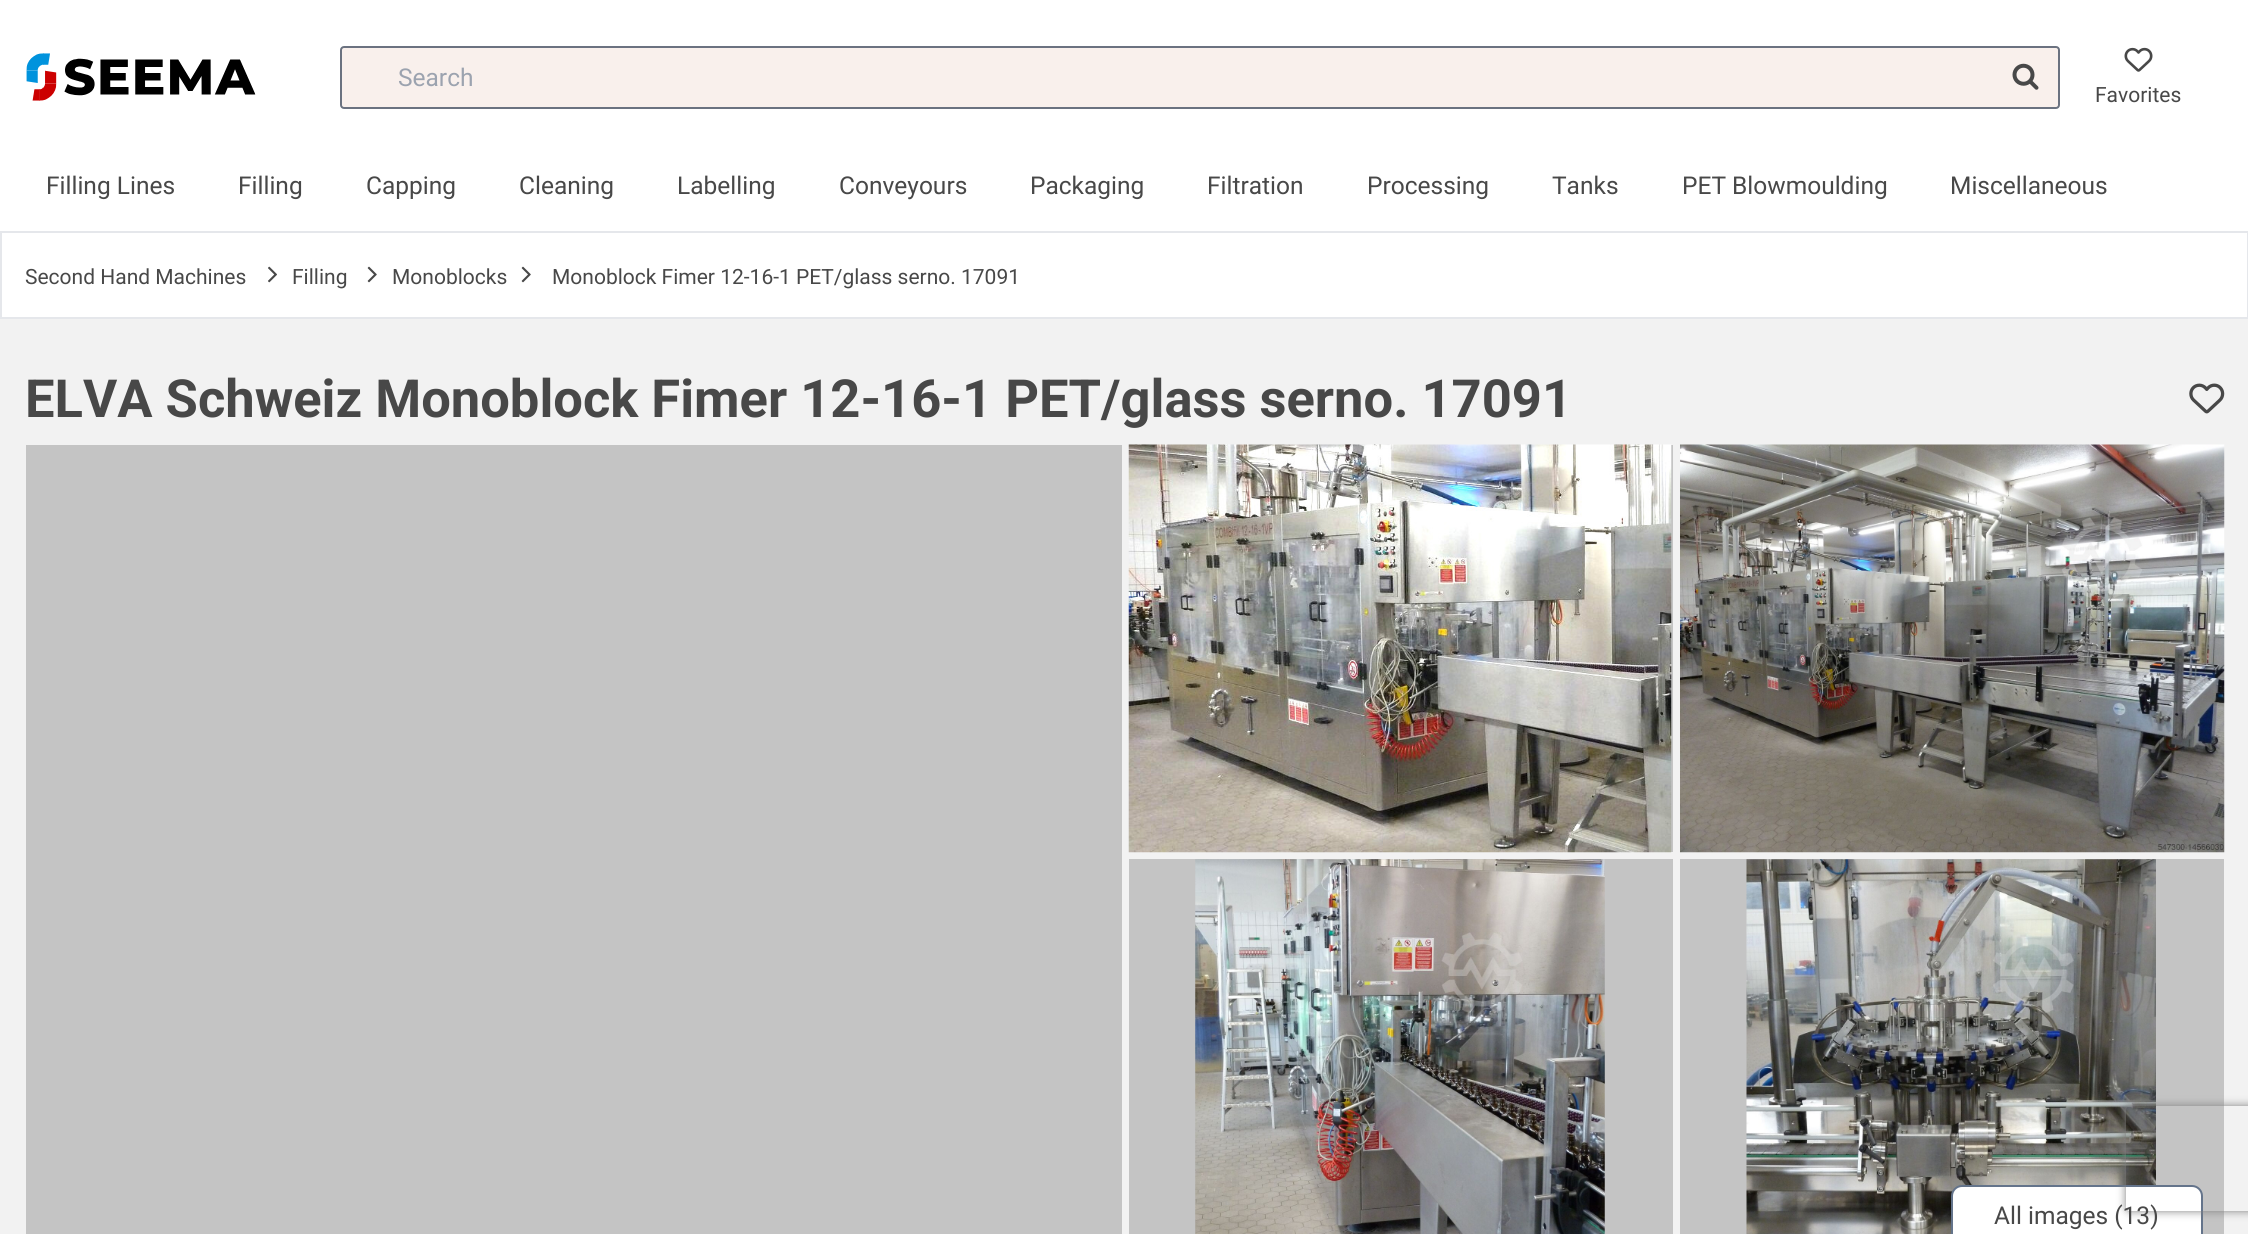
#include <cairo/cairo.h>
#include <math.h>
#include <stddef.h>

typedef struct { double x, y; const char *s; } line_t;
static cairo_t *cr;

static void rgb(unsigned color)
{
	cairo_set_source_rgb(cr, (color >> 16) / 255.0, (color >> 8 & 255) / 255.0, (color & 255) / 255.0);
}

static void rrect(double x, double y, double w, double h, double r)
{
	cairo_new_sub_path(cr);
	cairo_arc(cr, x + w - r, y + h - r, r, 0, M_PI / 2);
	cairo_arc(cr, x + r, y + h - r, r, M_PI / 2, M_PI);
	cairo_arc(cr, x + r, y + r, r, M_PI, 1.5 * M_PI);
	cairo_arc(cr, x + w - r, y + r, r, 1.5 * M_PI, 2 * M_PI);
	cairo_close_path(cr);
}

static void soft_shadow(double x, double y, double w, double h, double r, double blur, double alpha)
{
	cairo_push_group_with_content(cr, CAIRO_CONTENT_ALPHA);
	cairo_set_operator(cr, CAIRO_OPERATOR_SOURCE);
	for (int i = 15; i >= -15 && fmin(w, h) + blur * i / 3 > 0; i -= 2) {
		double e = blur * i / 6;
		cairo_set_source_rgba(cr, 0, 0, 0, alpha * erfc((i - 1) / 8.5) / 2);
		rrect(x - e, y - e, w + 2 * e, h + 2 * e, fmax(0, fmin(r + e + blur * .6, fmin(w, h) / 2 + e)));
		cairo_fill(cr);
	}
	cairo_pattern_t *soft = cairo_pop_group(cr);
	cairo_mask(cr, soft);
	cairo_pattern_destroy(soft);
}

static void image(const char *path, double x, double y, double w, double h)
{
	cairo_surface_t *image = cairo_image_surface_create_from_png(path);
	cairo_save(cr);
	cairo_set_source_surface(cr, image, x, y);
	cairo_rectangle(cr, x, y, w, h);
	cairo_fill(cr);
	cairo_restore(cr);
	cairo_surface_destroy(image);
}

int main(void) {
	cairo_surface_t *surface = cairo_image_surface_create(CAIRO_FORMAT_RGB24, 2248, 1234);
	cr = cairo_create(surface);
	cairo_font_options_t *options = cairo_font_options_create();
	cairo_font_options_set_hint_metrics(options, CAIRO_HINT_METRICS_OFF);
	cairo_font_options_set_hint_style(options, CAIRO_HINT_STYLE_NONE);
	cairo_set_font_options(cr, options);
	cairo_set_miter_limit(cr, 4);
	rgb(0xf2f2f2);
	cairo_paint(cr);
	rgb(0xffffff);
	cairo_rectangle(cr, 0, 0, 2248, 317);
	cairo_fill(cr);
	image("img/1.png", 26, 53, 230, 48);
	rgb(0xf9f0ec);
	rrect(341, 47, 1718, 61, 3);
	cairo_fill_preserve(cr);
	rgb(0x6b7280);
	cairo_stroke(cr);
	image("img/2.png", 2012, 63, 27, 27);
	image("img/3.png", 2124, 47, 29, 25);
	cairo_rectangle(cr, 1, 232, 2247, 86);
	rgb(0xe5e7eb);
	cairo_stroke(cr);
	image("img/4.png", 268, 266, 9, 17);
	image("img/5.png", 367, 266, 10, 17);
	image("img/5.png", 521, 266, 10, 17);
	image("img/6.png", 2189, 383, 36, 31);
	rgb(0xc4c4c4);
	cairo_rectangle(cr, 26, 445, 1096, 789);
	cairo_fill(cr);
	cairo_rectangle(cr, 1671, 445, 2, 407);
	cairo_fill(cr);
	image("img/7.png", 1128, 444, 544, 409);
	image("img/8.png", 1680, 444, 545, 409);
	cairo_rectangle(cr, 1129, 859, 544, 375);
	cairo_fill(cr);
	image("img/9.png", 1195, 859, 410, 375);
	cairo_rectangle(cr, 1680, 859, 544, 375);
	cairo_fill(cr);
	image("img/10.png", 1746, 859, 410, 375);
	rgb(0xffffff);
	rrect(1952, 1186, 250, 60, 10);
	cairo_fill_preserve(cr);
	rgb(0x64748b);
	cairo_stroke(cr);
	cairo_save(cr);
	cairo_set_fill_rule(cr, CAIRO_FILL_RULE_EVEN_ODD);
	cairo_new_path(cr);
	cairo_move_to(cr, 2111, 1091);
	cairo_line_to(cr, 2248, 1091);
	cairo_line_to(cr, 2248, 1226);
	cairo_line_to(cr, 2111, 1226);
	cairo_close_path(cr);
	cairo_move_to(cr, 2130, 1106);
	cairo_line_to(cr, 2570, 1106);
	cairo_curve_to(cr, 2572, 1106, 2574, 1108, 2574, 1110);
	cairo_line_to(cr, 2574, 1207);
	cairo_curve_to(cr, 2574, 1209, 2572, 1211, 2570, 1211);
	cairo_line_to(cr, 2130, 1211);
	cairo_curve_to(cr, 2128, 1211, 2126, 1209, 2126, 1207);
	cairo_line_to(cr, 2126, 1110);
	cairo_curve_to(cr, 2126, 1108, 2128, 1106, 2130, 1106);
	cairo_close_path(cr);
	cairo_clip(cr);
	rgb(0x808080);
	soft_shadow(2126, 1106, 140, 105, 4, 4.5, 1);
	cairo_restore(cr);
	cairo_select_font_face(cr, "Roboto", CAIRO_FONT_SLANT_NORMAL, CAIRO_FONT_WEIGHT_NORMAL);
	cairo_set_font_size(cr, 24.5);
	rgb(0x9ca3af);
	cairo_move_to(cr, 398, 86);
	cairo_show_text(cr, "Search");
	cairo_set_font_size(cr, 21);
	rgb(0x484848);
	cairo_move_to(cr, 2095, 102);
	cairo_show_text(cr, "Favorites");
	cairo_set_font_size(cr, 24.5);
	{
		static const line_t items[] = {
			{46, 194, "Filling Lines"},
			{238, 194, "Filling"},
			{366, 194, "Capping"},
			{519, 194, "Cleaning"},
			{677, 194, "Labelling"},
			{839, 194, "Conveyours"},
			{1030, 194, "Packaging"},
			{1207, 194, "Filtration"},
			{1367, 194, "Processing"},
			{1552, 194, "Tanks"},
			{1682, 194, "PET Blowmoulding"},
			{1950, 194, "Miscellaneous"},
		};
		for (size_t i = 0; i < sizeof items / sizeof *items; i++) {
			cairo_move_to(cr, items[i].x, items[i].y);
			cairo_show_text(cr, items[i].s);
		}
	}
	cairo_set_font_size(cr, 21);
	{
		static const line_t items[] = {
			{25, 284, "Second Hand Machines"},
			{292, 284, "Filling"},
			{392, 284, "Monoblocks"},
			{552, 284, "Monoblock Fimer 12-16-1 PET/glass serno. 17091"},
		};
		for (size_t i = 0; i < sizeof items / sizeof *items; i++) {
			cairo_move_to(cr, items[i].x, items[i].y);
			cairo_show_text(cr, items[i].s);
		}
	}
	cairo_select_font_face(cr, "Roboto", CAIRO_FONT_SLANT_NORMAL, CAIRO_FONT_WEIGHT_BOLD);
	cairo_set_font_size(cr, 52.5);
	cairo_move_to(cr, 25, 417);
	cairo_show_text(cr, "ELVA Schweiz Monoblock Fimer 12-16-1 PET/glass serno. 17091");
	cairo_select_font_face(cr, "Roboto", CAIRO_FONT_SLANT_NORMAL, CAIRO_FONT_WEIGHT_NORMAL);
	cairo_set_font_size(cr, 24.5);
	cairo_move_to(cr, 1994, 1224);
	cairo_show_text(cr, "All images (13)");
	cairo_surface_write_to_png(surface, "page.png");
	cairo_font_options_destroy(options);
	cairo_destroy(cr);
	cairo_surface_destroy(surface);
	return 0;
}
